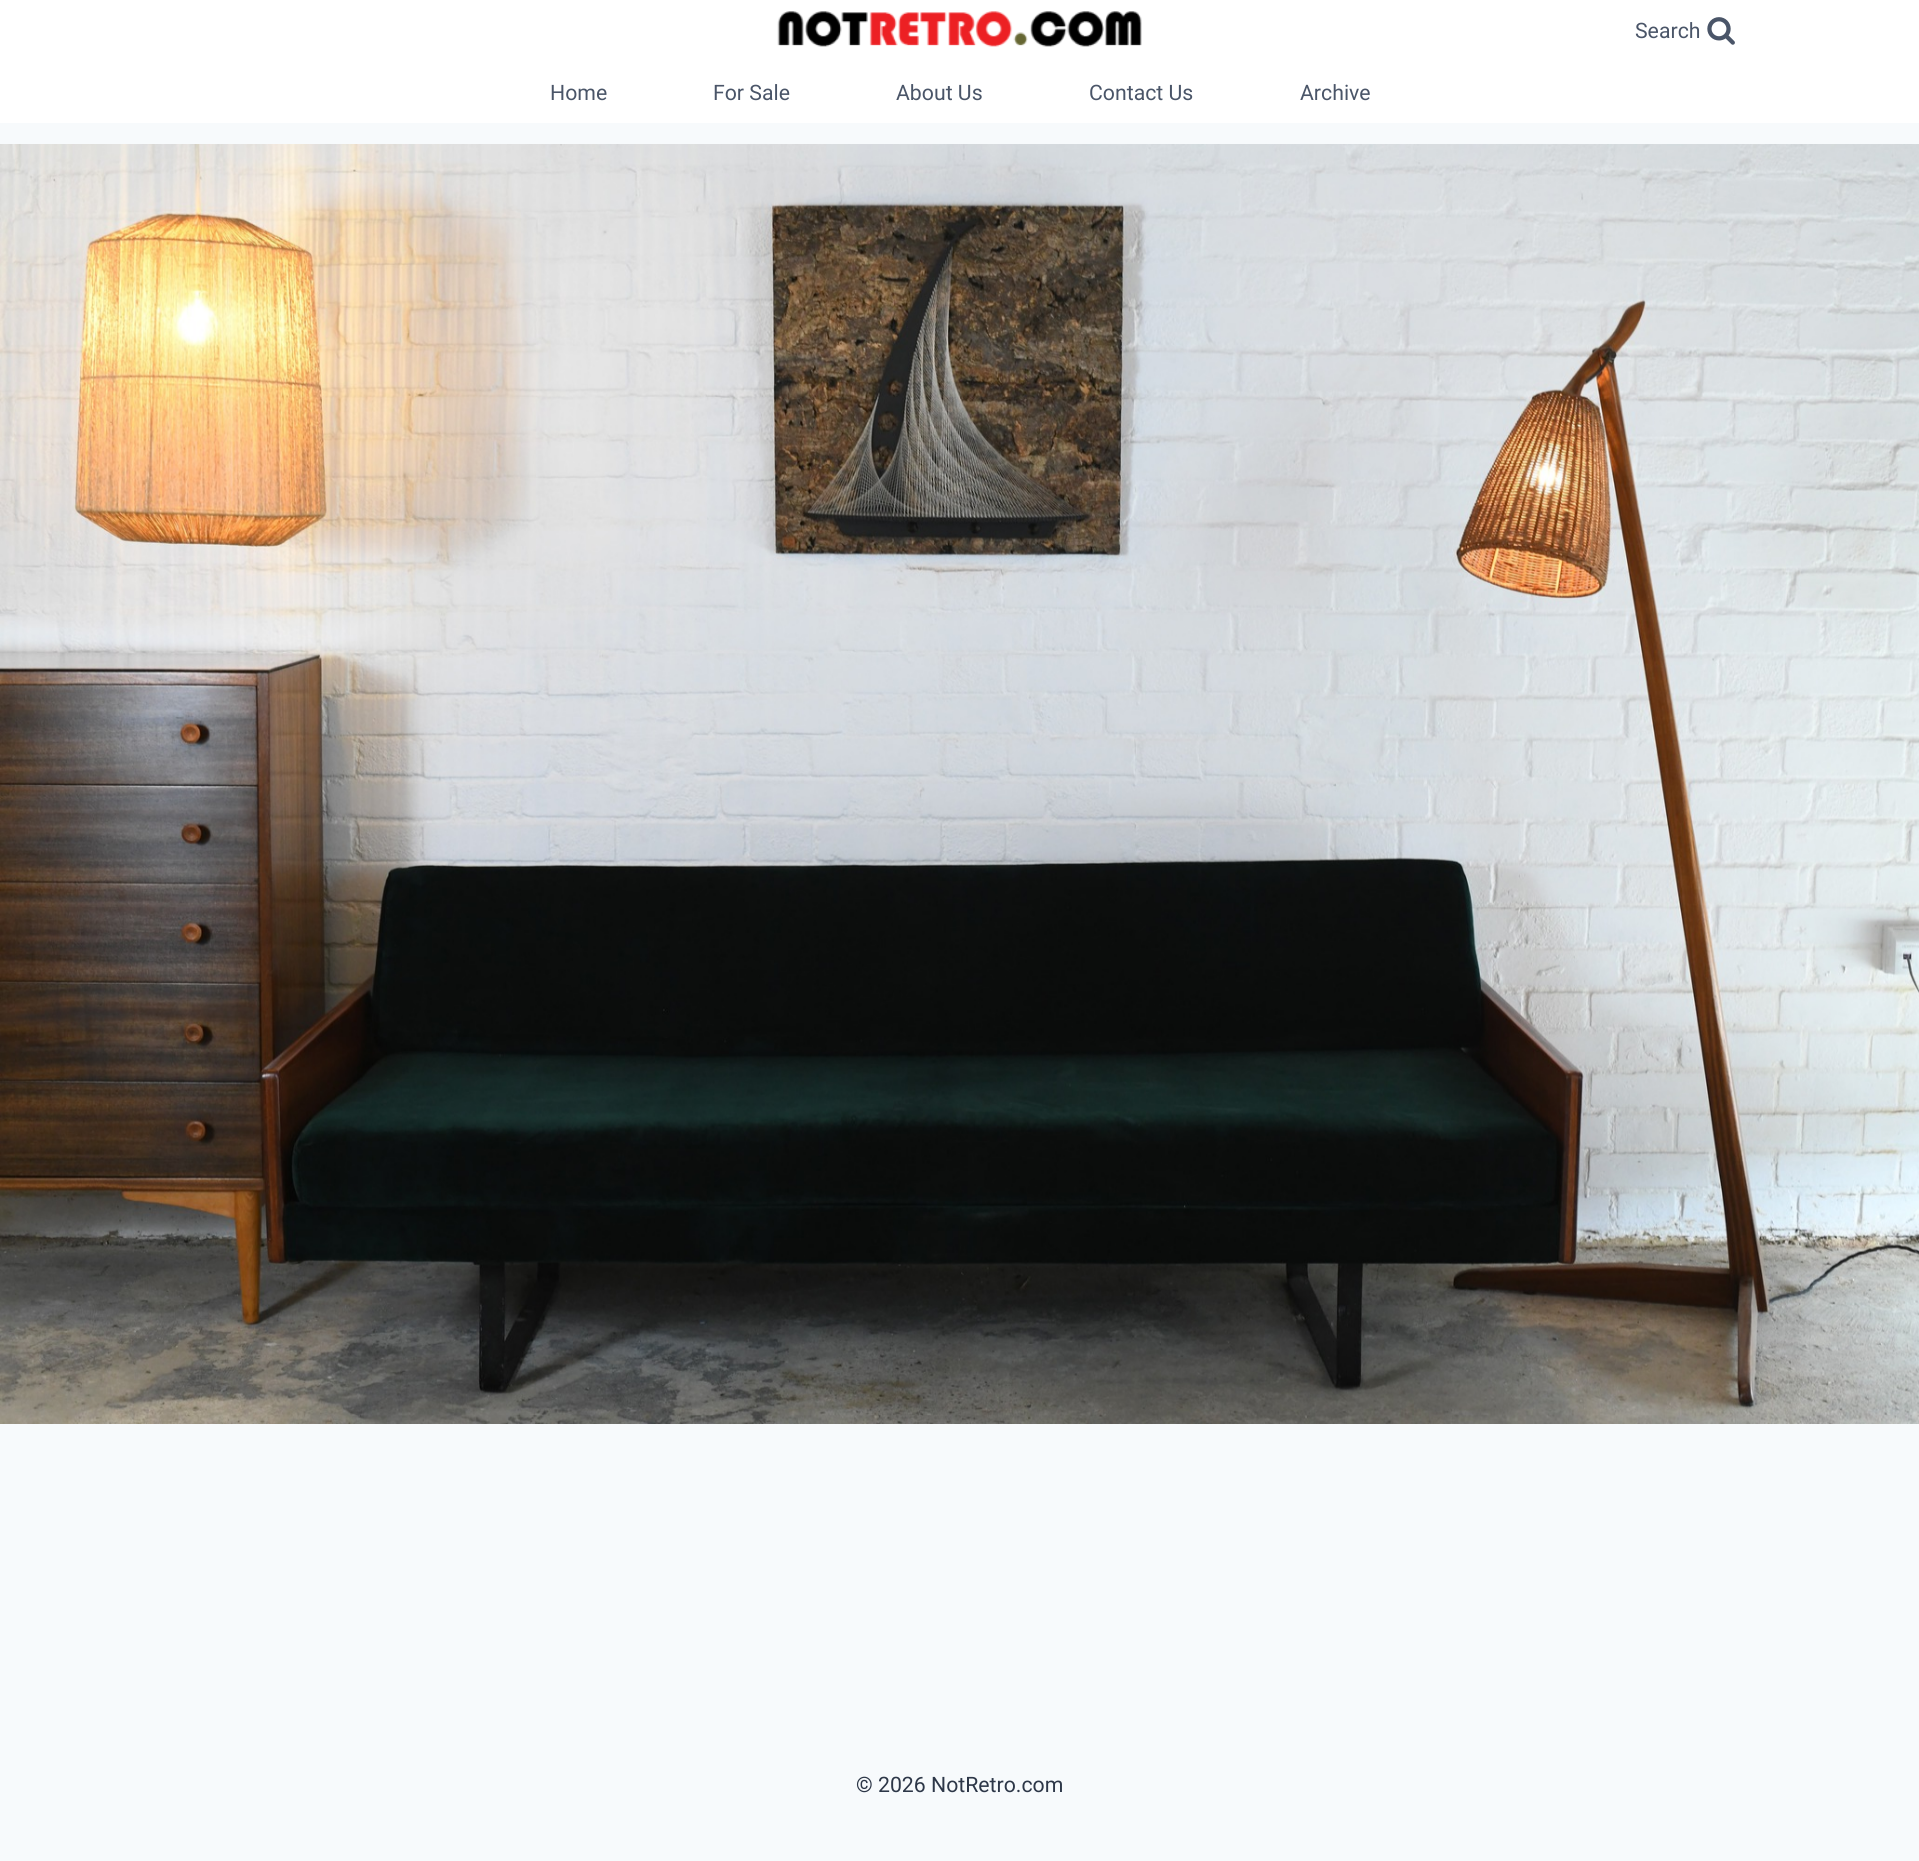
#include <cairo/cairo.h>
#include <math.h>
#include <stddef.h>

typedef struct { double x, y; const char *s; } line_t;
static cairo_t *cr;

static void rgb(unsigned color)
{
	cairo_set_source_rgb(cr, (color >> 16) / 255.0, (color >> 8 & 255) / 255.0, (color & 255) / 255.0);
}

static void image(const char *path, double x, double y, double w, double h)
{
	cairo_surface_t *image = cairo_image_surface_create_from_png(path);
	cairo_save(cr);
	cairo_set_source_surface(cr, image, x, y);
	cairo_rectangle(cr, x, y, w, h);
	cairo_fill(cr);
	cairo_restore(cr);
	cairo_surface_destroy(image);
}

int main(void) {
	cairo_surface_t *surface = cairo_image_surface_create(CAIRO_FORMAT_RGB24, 1919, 1861);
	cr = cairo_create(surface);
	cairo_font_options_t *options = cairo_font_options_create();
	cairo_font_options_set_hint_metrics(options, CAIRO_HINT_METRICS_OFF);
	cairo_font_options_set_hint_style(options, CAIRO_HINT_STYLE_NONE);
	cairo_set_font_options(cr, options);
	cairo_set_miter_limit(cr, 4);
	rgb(0xf7fafc);
	cairo_paint(cr);
	rgb(0xffffff);
	cairo_rectangle(cr, 0, 0, 1919, 123);
	cairo_fill(cr);
	image("img/1.png", 777, 11, 365, 36);
	image("img/2.png", 1707, 17, 28, 28);
	image("img/3.png", 0, 144, 1919, 1280);
	cairo_select_font_face(cr, "Roboto", CAIRO_FONT_SLANT_NORMAL, CAIRO_FONT_WEIGHT_NORMAL);
	cairo_set_font_size(cr, 21.25);
	rgb(0x4a5568);
	{
		static const line_t items[] = {
			{1635, 38, "Search"},
			{550, 100, "Home"},
			{713, 100, "For Sale"},
			{896, 100, "About Us"},
			{1089, 100, "Contact Us"},
			{1300, 100, "Archive"},
		};
		for (size_t i = 0; i < sizeof items / sizeof *items; i++) {
			cairo_move_to(cr, items[i].x, items[i].y);
			cairo_show_text(cr, items[i].s);
		}
	}
	rgb(0x2d3748);
	cairo_move_to(cr, 856, 1792);
	cairo_show_text(cr, "© 2026 NotRetro.com");
	cairo_surface_write_to_png(surface, "page.png");
	cairo_font_options_destroy(options);
	cairo_destroy(cr);
	cairo_surface_destroy(surface);
	return 0;
}
